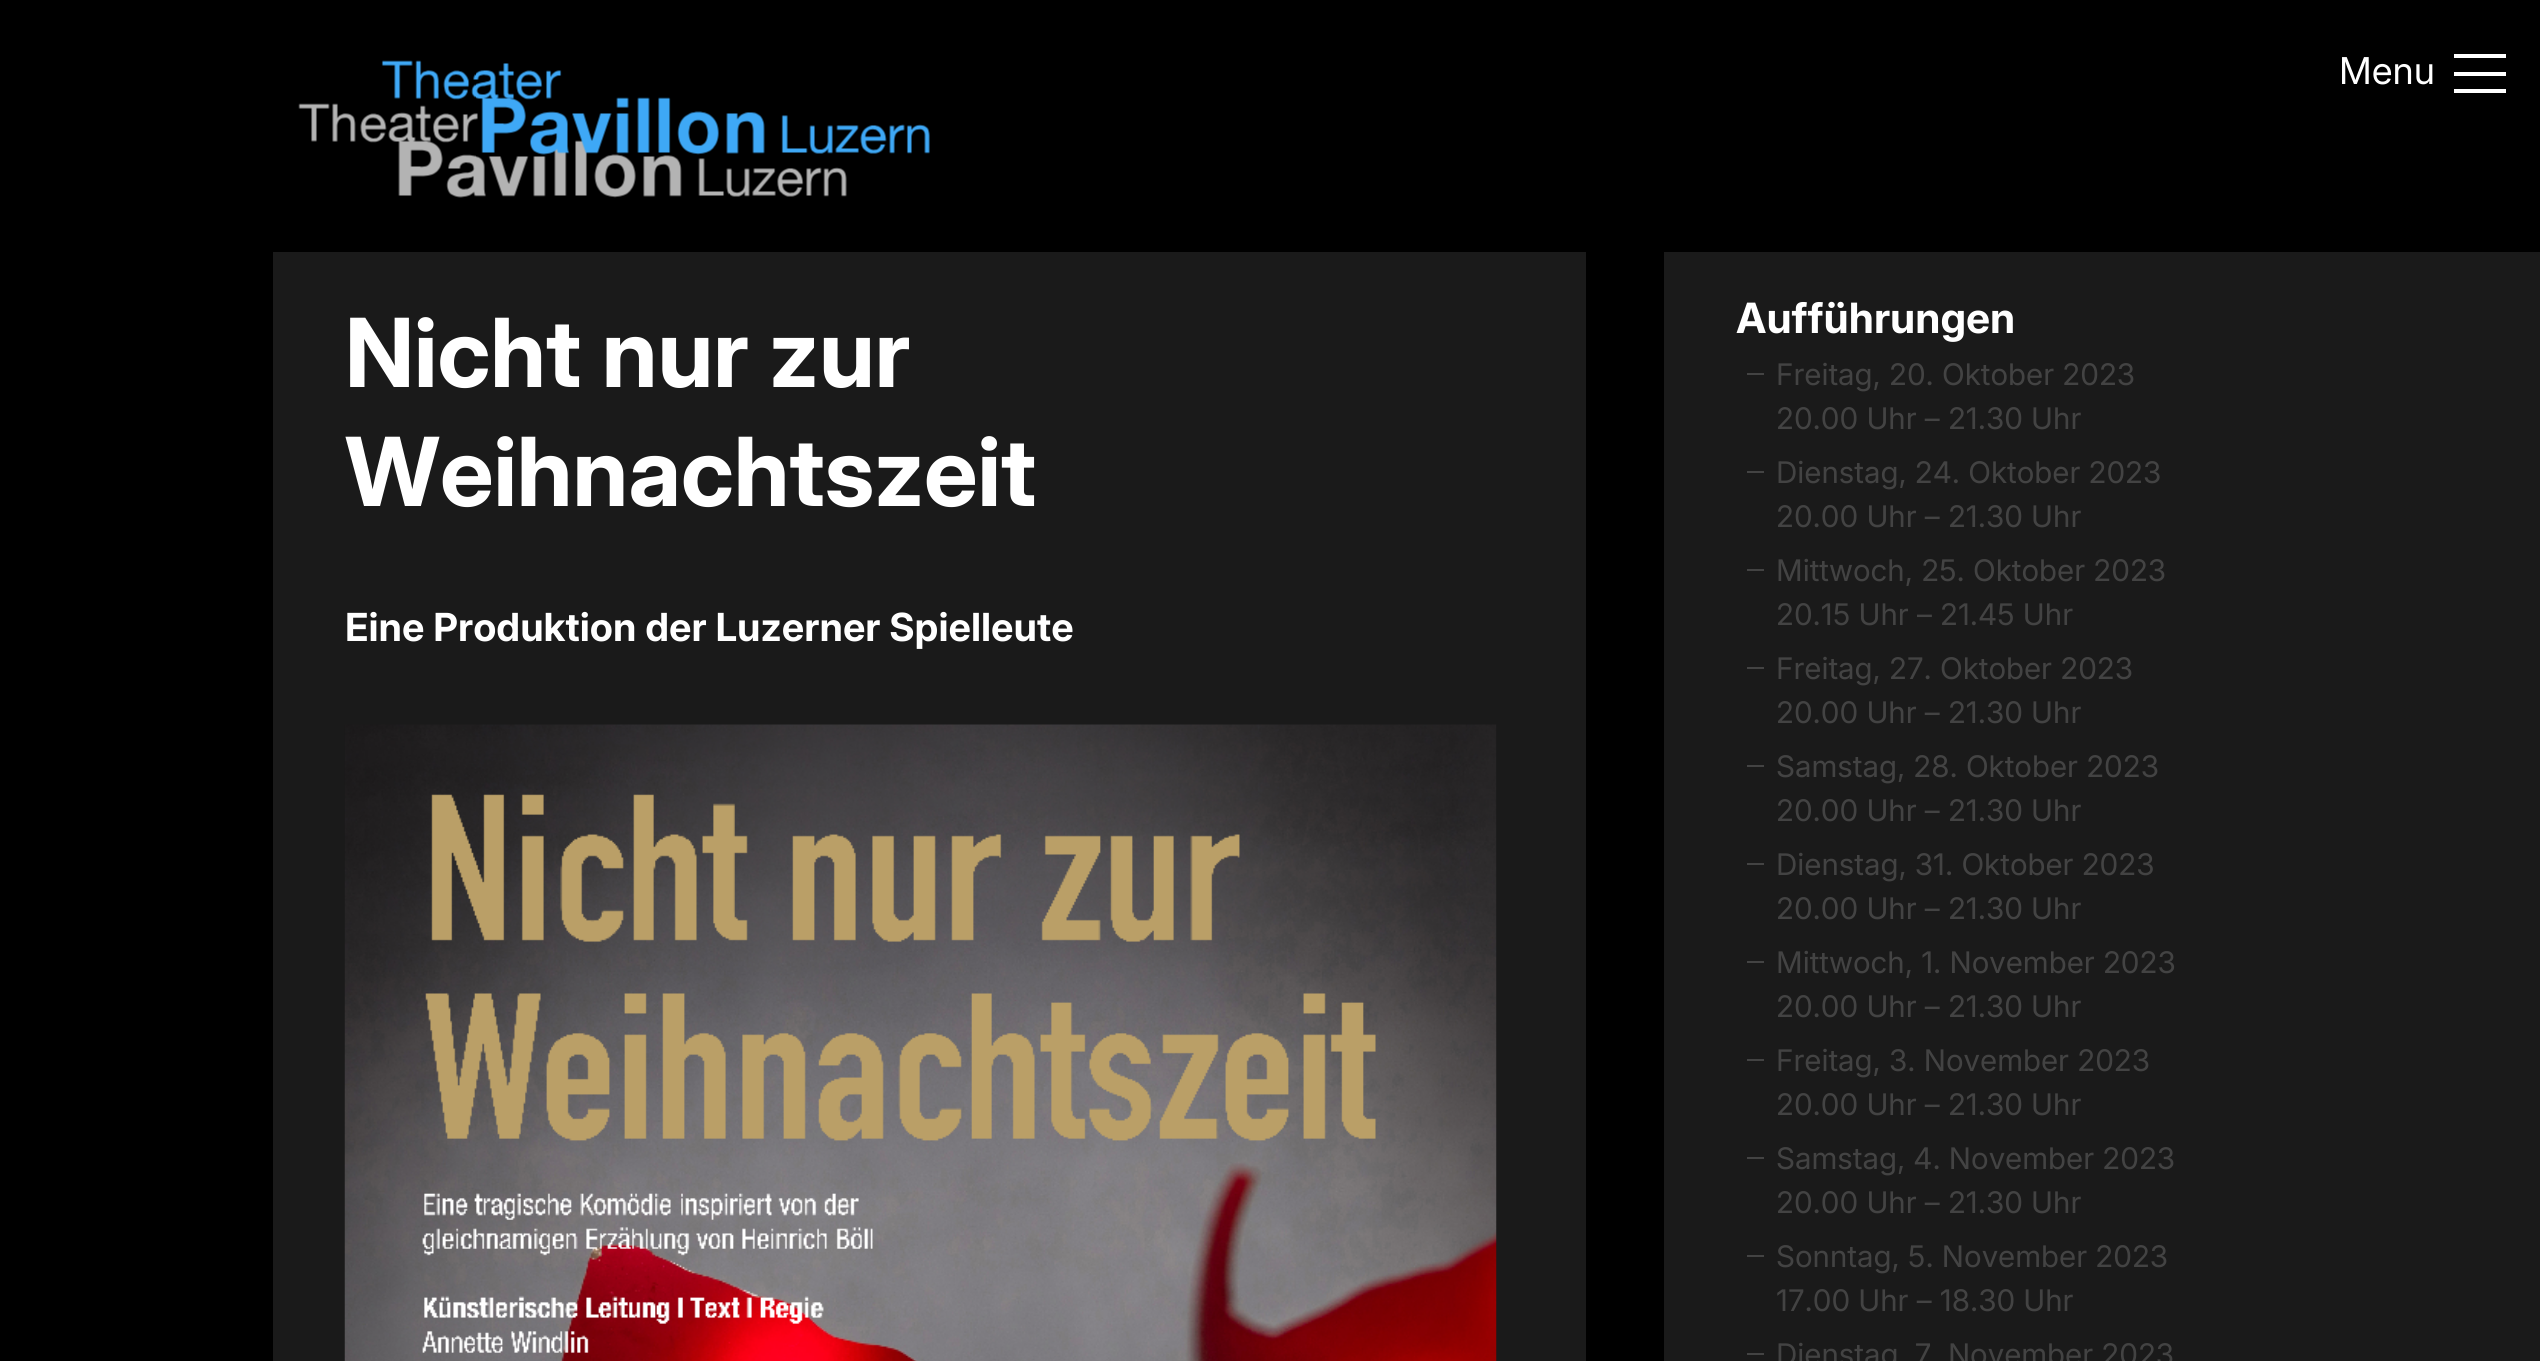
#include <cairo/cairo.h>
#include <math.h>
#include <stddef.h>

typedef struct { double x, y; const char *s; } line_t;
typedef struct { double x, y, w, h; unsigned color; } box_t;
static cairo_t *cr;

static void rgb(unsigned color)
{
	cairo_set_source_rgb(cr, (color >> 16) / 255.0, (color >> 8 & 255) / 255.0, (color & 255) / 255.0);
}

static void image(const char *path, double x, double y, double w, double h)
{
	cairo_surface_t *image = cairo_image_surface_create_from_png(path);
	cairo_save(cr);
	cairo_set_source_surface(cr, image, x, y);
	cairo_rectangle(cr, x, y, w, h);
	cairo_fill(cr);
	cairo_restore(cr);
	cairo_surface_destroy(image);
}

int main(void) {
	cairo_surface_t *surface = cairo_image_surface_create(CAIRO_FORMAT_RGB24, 2540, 1361);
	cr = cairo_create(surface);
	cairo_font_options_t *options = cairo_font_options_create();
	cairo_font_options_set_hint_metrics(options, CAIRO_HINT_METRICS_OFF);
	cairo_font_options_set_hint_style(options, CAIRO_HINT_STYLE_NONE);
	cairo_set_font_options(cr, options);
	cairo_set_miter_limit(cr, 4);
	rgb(0x000000);
	cairo_paint(cr);
	image("img/1.png", 298, 60, 632, 138);
	{
		static const box_t items[] = {
			{2454, 54, 52, 4, 0xffffff},
			{2454, 72, 52, 4, 0xffffff},
			{2454, 89, 52, 4, 0xffffff},
			{273, 252, 1313, 1109, 0x1a1a1a},
		};
		for (size_t i = 0; i < sizeof items / sizeof *items; i++) {
			rgb(items[i].color);
			cairo_rectangle(cr, items[i].x, items[i].y, items[i].w, items[i].h);
			cairo_fill(cr);
		}
	}
	image("img/2.png", 344, 724, 1153, 637);
	{
		static const box_t items[] = {
			{1664, 252, 876, 1109, 0x1a1a1a},
			{1747, 373, 17, 2, 0x434343},
			{1747, 471, 17, 2, 0x434343},
			{1747, 569, 17, 2, 0x434343},
			{1747, 667, 17, 2, 0x434343},
			{1747, 765, 17, 2, 0x434343},
			{1747, 863, 17, 2, 0x434343},
			{1747, 961, 17, 2, 0x434343},
			{1747, 1059, 17, 2, 0x434343},
			{1747, 1157, 17, 2, 0x434343},
			{1747, 1255, 17, 2, 0x434343},
			{1747, 1353, 17, 2, 0x434343},
		};
		for (size_t i = 0; i < sizeof items / sizeof *items; i++) {
			rgb(items[i].color);
			cairo_rectangle(cr, items[i].x, items[i].y, items[i].w, items[i].h);
			cairo_fill(cr);
		}
	}
	cairo_select_font_face(cr, "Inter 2", CAIRO_FONT_SLANT_NORMAL, CAIRO_FONT_WEIGHT_NORMAL);
	cairo_set_font_size(cr, 37);
	rgb(0xffffff);
	cairo_move_to(cr, 2339, 84);
	cairo_show_text(cr, "Menu");
	cairo_select_font_face(cr, "Inter", CAIRO_FONT_SLANT_NORMAL, CAIRO_FONT_WEIGHT_BOLD);
	cairo_set_font_size(cr, 95.25);
	cairo_move_to(cr, 345, 387);
	cairo_show_text(cr, "Nicht nur zur");
	cairo_move_to(cr, 345, 506);
	cairo_show_text(cr, "Weihnachtszeit");
	cairo_select_font_face(cr, "Inter 2", CAIRO_FONT_SLANT_NORMAL, CAIRO_FONT_WEIGHT_BOLD);
	cairo_set_font_size(cr, 38.7);
	cairo_move_to(cr, 345, 641);
	cairo_show_text(cr, "Eine Produktion der Luzerner Spielleute");
	cairo_select_font_face(cr, "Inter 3", CAIRO_FONT_SLANT_NORMAL, CAIRO_FONT_WEIGHT_BOLD);
	cairo_set_font_size(cr, 41.75);
	cairo_move_to(cr, 1736, 333);
	cairo_show_text(cr, "Aufführungen");
	cairo_select_font_face(cr, "Inter", CAIRO_FONT_SLANT_NORMAL, CAIRO_FONT_WEIGHT_NORMAL);
	cairo_set_font_size(cr, 29.75);
	rgb(0x434343);
	{
		static const line_t items[] = {
			{1776, 385, "Freitag, 20. Oktober 2023"},
			{1776, 429, "20.00 Uhr – 21.30 Uhr"},
			{1776, 483, "Dienstag, 24. Oktober 2023"},
			{1776, 527, "20.00 Uhr – 21.30 Uhr"},
			{1776, 581, "Mittwoch, 25. Oktober 2023"},
			{1776, 625, "20.15 Uhr – 21.45 Uhr"},
			{1776, 679, "Freitag, 27. Oktober 2023"},
			{1776, 723, "20.00 Uhr – 21.30 Uhr"},
			{1776, 777, "Samstag, 28. Oktober 2023"},
			{1776, 821, "20.00 Uhr – 21.30 Uhr"},
			{1776, 875, "Dienstag, 31. Oktober 2023"},
			{1776, 919, "20.00 Uhr – 21.30 Uhr"},
			{1776, 973, "Mittwoch, 1. November 2023"},
			{1776, 1017, "20.00 Uhr – 21.30 Uhr"},
			{1776, 1071, "Freitag, 3. November 2023"},
			{1776, 1115, "20.00 Uhr – 21.30 Uhr"},
			{1776, 1169, "Samstag, 4. November 2023"},
			{1776, 1213, "20.00 Uhr – 21.30 Uhr"},
			{1776, 1267, "Sonntag, 5. November 2023"},
			{1776, 1311, "17.00 Uhr – 18.30 Uhr"},
			{1776, 1365, "Dienstag, 7. November 2023"},
		};
		for (size_t i = 0; i < sizeof items / sizeof *items; i++) {
			cairo_move_to(cr, items[i].x, items[i].y);
			cairo_show_text(cr, items[i].s);
		}
	}
	cairo_surface_write_to_png(surface, "page.png");
	cairo_font_options_destroy(options);
	cairo_destroy(cr);
	cairo_surface_destroy(surface);
	return 0;
}
